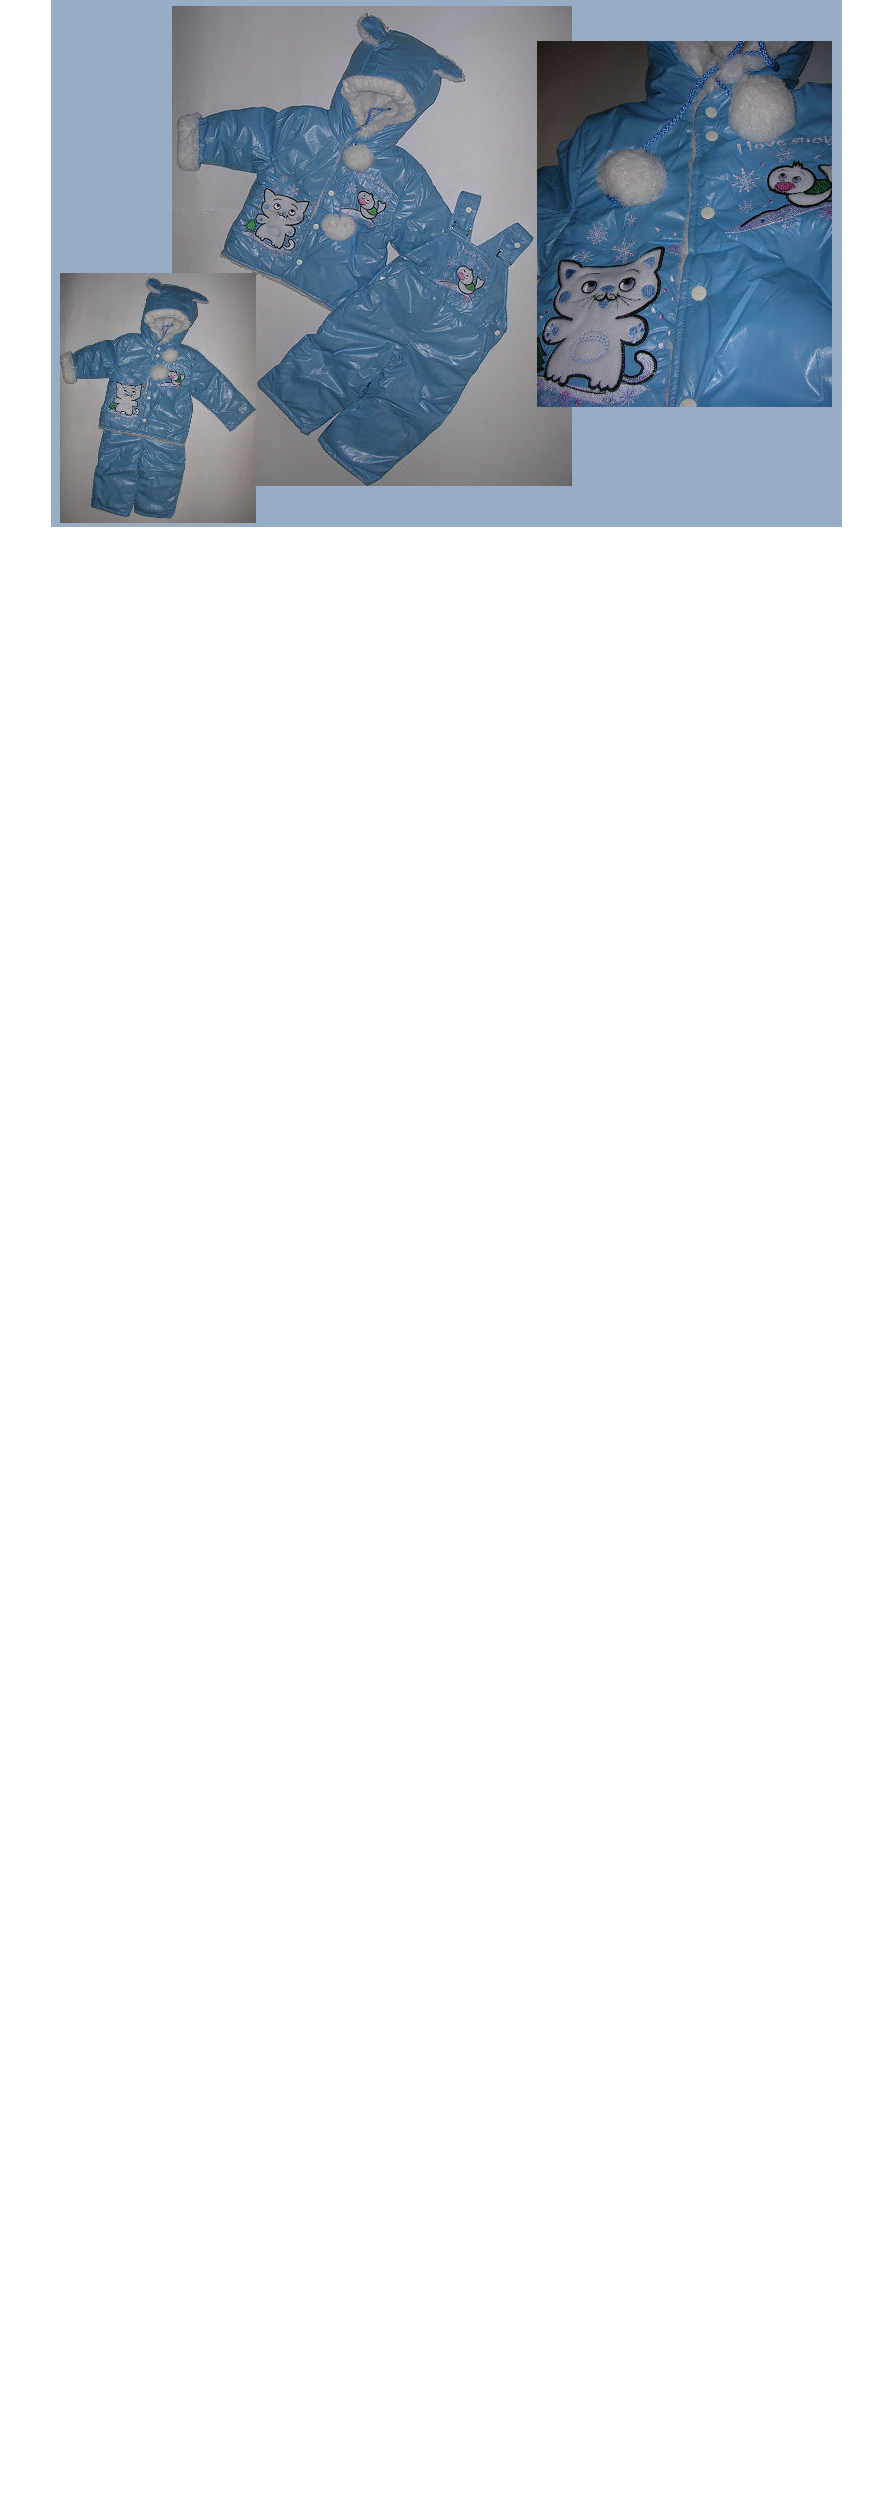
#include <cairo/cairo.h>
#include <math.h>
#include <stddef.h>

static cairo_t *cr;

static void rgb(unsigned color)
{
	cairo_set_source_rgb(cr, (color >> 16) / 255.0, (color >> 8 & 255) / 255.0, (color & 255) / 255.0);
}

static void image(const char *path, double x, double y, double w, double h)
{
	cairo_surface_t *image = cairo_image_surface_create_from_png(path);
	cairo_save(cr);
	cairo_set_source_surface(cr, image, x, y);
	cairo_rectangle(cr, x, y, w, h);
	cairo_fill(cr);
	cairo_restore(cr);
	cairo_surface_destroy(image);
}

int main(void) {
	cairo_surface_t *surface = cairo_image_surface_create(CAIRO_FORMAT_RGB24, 893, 2495);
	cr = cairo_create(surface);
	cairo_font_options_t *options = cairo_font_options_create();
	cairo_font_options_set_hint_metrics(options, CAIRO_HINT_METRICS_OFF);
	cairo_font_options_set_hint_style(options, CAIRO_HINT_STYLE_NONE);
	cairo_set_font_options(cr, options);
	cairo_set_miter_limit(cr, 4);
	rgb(0xffffff);
	cairo_paint(cr);
	image("img/1.png", 51, 0, 791, 527);
	cairo_surface_write_to_png(surface, "page.png");
	cairo_font_options_destroy(options);
	cairo_destroy(cr);
	cairo_surface_destroy(surface);
	return 0;
}
